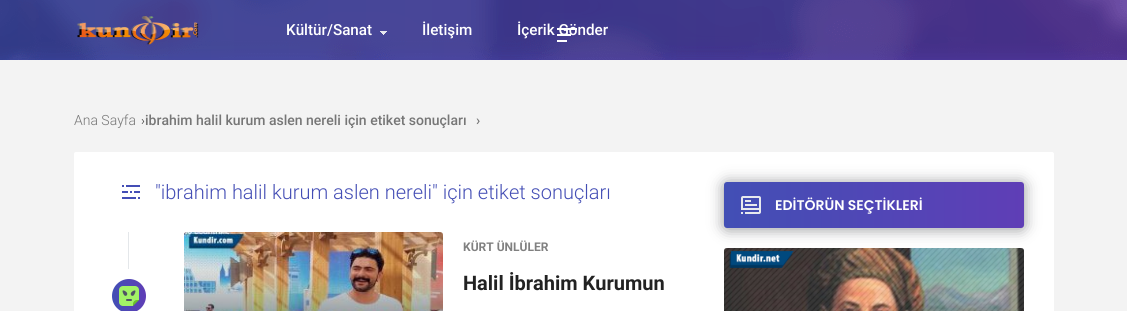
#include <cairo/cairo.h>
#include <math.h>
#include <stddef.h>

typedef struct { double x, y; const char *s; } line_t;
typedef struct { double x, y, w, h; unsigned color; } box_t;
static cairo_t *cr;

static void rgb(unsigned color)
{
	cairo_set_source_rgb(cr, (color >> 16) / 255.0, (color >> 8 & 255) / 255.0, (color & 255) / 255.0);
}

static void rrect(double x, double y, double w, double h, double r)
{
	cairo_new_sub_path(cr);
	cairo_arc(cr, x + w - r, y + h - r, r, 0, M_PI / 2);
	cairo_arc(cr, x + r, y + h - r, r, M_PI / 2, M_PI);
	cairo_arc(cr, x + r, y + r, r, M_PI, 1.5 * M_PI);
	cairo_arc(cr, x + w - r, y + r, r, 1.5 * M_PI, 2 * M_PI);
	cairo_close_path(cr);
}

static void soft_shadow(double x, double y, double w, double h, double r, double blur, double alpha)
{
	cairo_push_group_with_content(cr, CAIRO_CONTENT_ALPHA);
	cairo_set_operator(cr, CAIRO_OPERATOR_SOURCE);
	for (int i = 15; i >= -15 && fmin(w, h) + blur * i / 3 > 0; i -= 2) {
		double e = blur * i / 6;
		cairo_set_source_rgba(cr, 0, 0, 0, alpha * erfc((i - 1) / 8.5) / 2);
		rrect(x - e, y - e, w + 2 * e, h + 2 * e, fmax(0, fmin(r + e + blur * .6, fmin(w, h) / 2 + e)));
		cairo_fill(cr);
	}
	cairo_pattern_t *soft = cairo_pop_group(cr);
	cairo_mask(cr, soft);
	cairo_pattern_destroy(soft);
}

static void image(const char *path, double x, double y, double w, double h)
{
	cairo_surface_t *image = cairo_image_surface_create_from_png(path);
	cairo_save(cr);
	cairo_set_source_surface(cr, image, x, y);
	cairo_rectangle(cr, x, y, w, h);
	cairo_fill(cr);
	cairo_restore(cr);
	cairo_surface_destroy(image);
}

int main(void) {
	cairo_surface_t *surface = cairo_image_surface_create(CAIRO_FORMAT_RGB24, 1127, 311);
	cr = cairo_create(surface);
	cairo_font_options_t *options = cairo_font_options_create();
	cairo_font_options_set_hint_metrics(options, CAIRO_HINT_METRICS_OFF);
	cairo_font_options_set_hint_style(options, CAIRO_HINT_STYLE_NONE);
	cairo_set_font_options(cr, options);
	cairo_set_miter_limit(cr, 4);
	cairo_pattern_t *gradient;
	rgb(0xf3f3f3);
	cairo_paint(cr);
	gradient = cairo_pattern_create_linear(1127, 30, 0, 30);
	cairo_pattern_add_color_stop_rgba(gradient, 0, 0.373, 0.243, 0.714, 1);
	cairo_pattern_add_color_stop_rgba(gradient, 1, 0.259, 0.31, 0.71, 1);
	cairo_set_source(cr, gradient);
	cairo_pattern_destroy(gradient);
	cairo_rectangle(cr, 0, 0, 1127, 60);
	cairo_fill(cr);
	image("img/1.png", 0, 0, 1127, 60);
	image("img/2.png", 77, 16, 122, 29);
	image("img/3.png", 380, 31, 7, 4);
	{
		static const box_t items[] = {
			{557, 34, 14, 2, 0xffffff},
			{557, 28, 20, 2, 0xffffff},
			{557, 40, 10, 2, 0xffffff},
		};
		for (size_t i = 0; i < sizeof items / sizeof *items; i++) {
			rgb(items[i].color);
			cairo_rectangle(cr, items[i].x, items[i].y, items[i].w, items[i].h);
			cairo_fill(cr);
		}
	}
	rrect(74, 152, 980, 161, 2);
	cairo_fill(cr);
	image("img/4.png", 122, 185, 18, 14);
	rgb(0xe4e7ea);
	cairo_rectangle(cr, 128, 232, 1, 37);
	cairo_fill(cr);
	image("img/5.png", 184, 232, 259, 79);
	gradient = cairo_pattern_create_linear(146, 296, 112, 296);
	cairo_pattern_add_color_stop_rgba(gradient, 0, 0.373, 0.243, 0.714, 1);
	cairo_pattern_add_color_stop_rgba(gradient, 1, 0.259, 0.31, 0.71, 1);
	cairo_set_source(cr, gradient);
	cairo_pattern_destroy(gradient);
	cairo_arc(cr, 129, 296, 17, 0, 2 * M_PI);
	cairo_fill(cr);
	image("img/6.png", 119, 286, 20, 20);
	rgb(0x111519);
	soft_shadow(724, 183, 300, 46, 3, 7.5, 0.46);
	gradient = cairo_pattern_create_linear(1024, 205, 724, 205);
	cairo_pattern_add_color_stop_rgba(gradient, 0, 0.373, 0.243, 0.714, 1);
	cairo_pattern_add_color_stop_rgba(gradient, 1, 0.259, 0.31, 0.71, 1);
	cairo_set_source(cr, gradient);
	cairo_pattern_destroy(gradient);
	rrect(724, 182, 300, 46, 3);
	cairo_fill(cr);
	image("img/7.png", 741, 196, 20, 18);
	image("img/8.png", 724, 248, 300, 63);
	cairo_select_font_face(cr, "Roboto Medium", CAIRO_FONT_SLANT_NORMAL, CAIRO_FONT_WEIGHT_NORMAL);
	cairo_set_font_size(cr, 15.25);
	rgb(0xffffff);
	{
		static const line_t items[] = {
			{286, 35, "Kültür/Sanat"},
			{422, 35, "İletişim"},
			{517, 35, "İçerik Gönder"},
		};
		for (size_t i = 0; i < sizeof items / sizeof *items; i++) {
			cairo_move_to(cr, items[i].x, items[i].y);
			cairo_show_text(cr, items[i].s);
		}
	}
	cairo_select_font_face(cr, "Roboto Light", CAIRO_FONT_SLANT_NORMAL, CAIRO_FONT_WEIGHT_NORMAL);
	cairo_set_font_size(cr, 14);
	rgb(0x767676);
	cairo_move_to(cr, 74, 125);
	cairo_show_text(cr, "Ana Sayfa");
	cairo_set_font_size(cr, 13);
	rgb(0x333333);
	cairo_move_to(cr, 141, 125);
	cairo_show_text(cr, "›");
	cairo_select_font_face(cr, "Roboto Medium", CAIRO_FONT_SLANT_NORMAL, CAIRO_FONT_WEIGHT_NORMAL);
	cairo_set_font_size(cr, 14);
	rgb(0x767676);
	cairo_move_to(cr, 145, 125);
	cairo_show_text(cr, "ibrahim halil kurum aslen nereli için etiket sonuçları");
	cairo_move_to(cr, 476, 125);
	cairo_show_text(cr, "›");
	cairo_select_font_face(cr, "Roboto Light", CAIRO_FONT_SLANT_NORMAL, CAIRO_FONT_WEIGHT_NORMAL);
	cairo_set_font_size(cr, 20);
	rgb(0x444eb5);
	cairo_move_to(cr, 155, 199);
	cairo_show_text(cr, "\"ibrahim halil kurum aslen nereli\" için etiket sonuçları");
	cairo_select_font_face(cr, "Roboto", CAIRO_FONT_SLANT_NORMAL, CAIRO_FONT_WEIGHT_BOLD);
	cairo_set_font_size(cr, 12);
	rgb(0x808080);
	cairo_move_to(cr, 463, 251);
	cairo_show_text(cr, "KÜRT ÜNLÜLER");
	cairo_set_font_size(cr, 20);
	rgb(0x222222);
	cairo_move_to(cr, 463, 290);
	cairo_show_text(cr, "Halil İbrahim Kurumun");
	cairo_select_font_face(cr, "Poppins SemiBold", CAIRO_FONT_SLANT_NORMAL, CAIRO_FONT_WEIGHT_NORMAL);
	cairo_set_font_size(cr, 14);
	rgb(0xffffff);
	cairo_move_to(cr, 775, 210);
	cairo_show_text(cr, "EDİTÖRÜN SEÇTİKLERİ");
	cairo_surface_write_to_png(surface, "page.png");
	cairo_font_options_destroy(options);
	cairo_destroy(cr);
	cairo_surface_destroy(surface);
	return 0;
}
